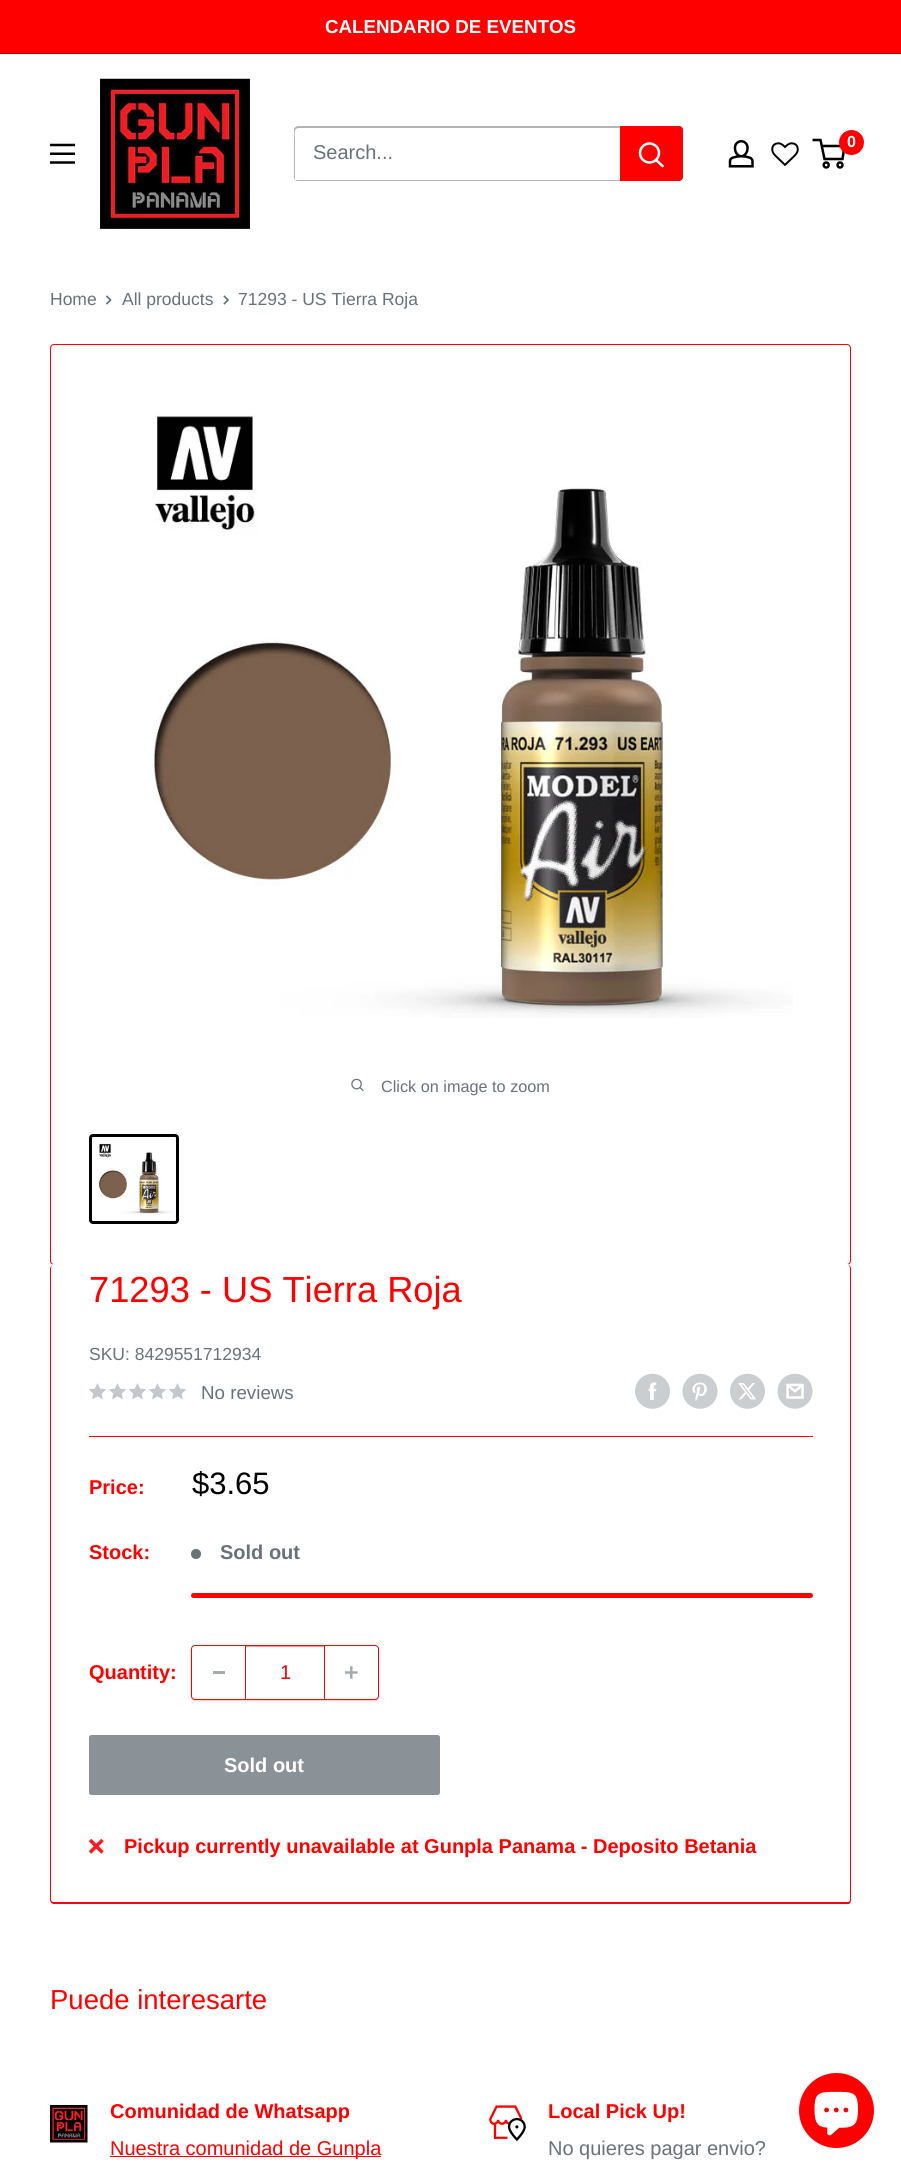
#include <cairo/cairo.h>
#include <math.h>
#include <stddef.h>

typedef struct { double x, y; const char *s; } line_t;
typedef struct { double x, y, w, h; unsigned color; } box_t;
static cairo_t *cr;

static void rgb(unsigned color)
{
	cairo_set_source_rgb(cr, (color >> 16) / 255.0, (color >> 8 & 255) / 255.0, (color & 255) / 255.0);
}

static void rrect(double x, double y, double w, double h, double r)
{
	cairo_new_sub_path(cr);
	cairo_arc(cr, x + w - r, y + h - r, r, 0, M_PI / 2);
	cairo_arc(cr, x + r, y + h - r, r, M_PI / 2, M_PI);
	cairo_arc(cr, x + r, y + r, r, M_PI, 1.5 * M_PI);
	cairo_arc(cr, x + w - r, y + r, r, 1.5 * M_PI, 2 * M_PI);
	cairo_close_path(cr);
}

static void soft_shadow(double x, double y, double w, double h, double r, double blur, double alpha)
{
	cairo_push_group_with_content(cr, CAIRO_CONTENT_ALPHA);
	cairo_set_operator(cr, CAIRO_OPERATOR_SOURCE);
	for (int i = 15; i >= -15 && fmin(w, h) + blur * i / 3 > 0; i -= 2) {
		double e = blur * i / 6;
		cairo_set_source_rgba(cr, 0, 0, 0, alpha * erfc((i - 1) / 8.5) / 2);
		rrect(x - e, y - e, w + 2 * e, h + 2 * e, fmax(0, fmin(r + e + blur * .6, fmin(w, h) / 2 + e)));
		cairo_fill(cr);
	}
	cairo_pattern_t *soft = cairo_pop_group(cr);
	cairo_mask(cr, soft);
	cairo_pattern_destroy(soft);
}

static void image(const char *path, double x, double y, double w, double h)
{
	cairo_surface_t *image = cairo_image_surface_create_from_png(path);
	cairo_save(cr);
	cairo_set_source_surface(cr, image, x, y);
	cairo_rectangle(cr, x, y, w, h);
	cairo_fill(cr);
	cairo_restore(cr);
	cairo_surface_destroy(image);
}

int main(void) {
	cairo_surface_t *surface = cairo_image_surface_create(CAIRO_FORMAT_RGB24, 901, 2173);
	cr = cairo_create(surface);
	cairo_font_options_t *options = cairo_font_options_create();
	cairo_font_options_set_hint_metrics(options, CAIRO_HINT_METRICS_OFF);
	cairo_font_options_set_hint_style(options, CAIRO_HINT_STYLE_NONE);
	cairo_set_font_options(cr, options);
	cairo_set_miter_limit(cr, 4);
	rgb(0xffffff);
	cairo_paint(cr);
	rgb(0xff0000);
	cairo_rectangle(cr, 0, 0, 901, 53);
	cairo_fill(cr);
	rgb(0xb30000);
	cairo_rectangle(cr, 0, 53, 901, 1);
	cairo_fill(cr);
	image("img/1.png", 100, 78, 150, 151);
	image("img/2.png", 728, 140, 26, 28);
	image("img/3.png", 771, 142, 28, 24);
	cairo_arc(cr, 826.2, 165, 2.5, 0, 2 * M_PI);
	rgb(0x000000);
	cairo_set_line_width(cr, 2.5);
	cairo_stroke(cr);
	cairo_arc(cr, 840, 165, 2.5, 0, 2 * M_PI);
	cairo_stroke(cr);
	cairo_new_path(cr);
	cairo_move_to(cr, 821.5, 146);
	cairo_line_to(cr, 844.5, 146);
	cairo_line_to(cr, 842.5, 159);
	cairo_line_to(cr, 824.5, 159);
	cairo_line_to(cr, 820.5, 140);
	cairo_line_to(cr, 812.5, 140);
	cairo_stroke(cr);
	rgb(0xff0000);
	cairo_arc(cr, 851.5, 142.5, 12.5, 0, 2 * M_PI);
	cairo_fill(cr);
	image("img/4.png", 50, 143, 25, 21);
	rgb(0xb3b3b3);
	cairo_new_path(cr);
	cairo_move_to(cr, 295, 180);
	cairo_curve_to(cr, 296, 181, 297, 181, 298, 181);
	cairo_line_to(cr, 679, 181);
	cairo_curve_to(cr, 681, 181, 683, 179, 683, 177);
	cairo_line_to(cr, 683, 130);
	cairo_curve_to(cr, 683, 128, 682, 127, 680, 126);
	cairo_line_to(cr, 681, 129);
	cairo_line_to(cr, 681, 176);
	cairo_curve_to(cr, 681, 178, 680, 180, 678, 180);
	cairo_close_path(cr);
	cairo_fill(cr);
	cairo_set_source_rgba(cr, 0, 0, 0, 0.3);
	cairo_new_path(cr);
	cairo_move_to(cr, 299, 128);
	cairo_line_to(cr, 680, 128);
	cairo_line_to(cr, 683, 129);
	cairo_curve_to(cr, 682, 127, 681, 126, 679, 126);
	cairo_line_to(cr, 298, 126);
	cairo_curve_to(cr, 296, 126, 294, 128, 294, 130);
	cairo_line_to(cr, 294, 177);
	cairo_curve_to(cr, 294, 178, 294, 179, 295, 180);
	cairo_line_to(cr, 295, 139);
	cairo_curve_to(cr, 295, 135, 293, 128, 299, 128);
	cairo_close_path(cr);
	cairo_fill(cr);
	rgb(0xff0000);
	cairo_new_path(cr);
	cairo_move_to(cr, 620, 126);
	cairo_line_to(cr, 679, 126);
	cairo_curve_to(cr, 681, 126, 683, 128, 683, 130);
	cairo_line_to(cr, 683, 177);
	cairo_curve_to(cr, 683, 179, 681, 181, 679, 181);
	cairo_line_to(cr, 620, 181);
	cairo_close_path(cr);
	cairo_fill(cr);
	cairo_new_path(cr);
	cairo_move_to(cr, 662.5, 166);
	cairo_line_to(cr, 656, 160);
	rgb(0xffffff);
	cairo_set_line_cap(cr, CAIRO_LINE_CAP_SQUARE);
	cairo_stroke(cr);
	cairo_arc(cr, 649.5, 153, 9.5, 0, 2 * M_PI);
	cairo_set_line_cap(cr, CAIRO_LINE_CAP_BUTT);
	cairo_stroke(cr);
	cairo_new_path(cr);
	cairo_move_to(cr, 107, 296.5);
	cairo_line_to(cr, 110.5, 300);
	cairo_line_to(cr, 107, 303.5);
	rgb(0x677279);
	cairo_set_line_width(cr, 1.7);
	cairo_set_line_cap(cr, CAIRO_LINE_CAP_SQUARE);
	cairo_stroke(cr);
	cairo_new_path(cr);
	cairo_move_to(cr, 224.5, 296.5);
	cairo_line_to(cr, 228, 300);
	cairo_line_to(cr, 224.5, 303.5);
	cairo_stroke(cr);
	rrect(50.5, 344.5, 800, 920, 3.5);
	rgb(0xff0000);
	cairo_set_line_width(cr, 1);
	cairo_set_line_cap(cr, CAIRO_LINE_CAP_BUTT);
	cairo_stroke(cr);
	image("img/5.png", 152, 413, 641, 605);
	image("img/6.png", 351, 1078, 13, 14);
	rrect(90.5, 1135.5, 87, 87, 2.5);
	rgb(0x000000);
	cairo_set_line_width(cr, 3);
	cairo_stroke(cr);
	image("img/7.png", 98, 1143, 75, 72);
	rgb(0xffffff);
	cairo_new_path(cr);
	cairo_move_to(cr, 54, 1264);
	cairo_curve_to(cr, 51, 1264, 50, 1266, 50, 1269);
	cairo_curve_to(cr, 50, 1267, 52, 1265, 54, 1265);
	cairo_line_to(cr, 848, 1265);
	cairo_curve_to(cr, 849, 1265, 850, 1266, 851, 1267);
	cairo_curve_to(cr, 851, 1265, 849, 1264, 847, 1264);
	cairo_close_path(cr);
	cairo_fill(cr);
	rgb(0xff0000);
	cairo_set_fill_rule(cr, CAIRO_FILL_RULE_EVEN_ODD);
	cairo_new_path(cr);
	cairo_move_to(cr, 54, 1265);
	cairo_line_to(cr, 848, 1265);
	cairo_curve_to(cr, 850, 1265, 851, 1267, 851, 1269);
	cairo_line_to(cr, 851, 1900);
	cairo_curve_to(cr, 851, 1902, 850, 1904, 848, 1904);
	cairo_line_to(cr, 54, 1904);
	cairo_curve_to(cr, 52, 1904, 50, 1902, 50, 1900);
	cairo_line_to(cr, 50, 1269);
	cairo_curve_to(cr, 50, 1267, 52, 1265, 54, 1265);
	cairo_close_path(cr);
	cairo_move_to(cr, 54, 1265);
	cairo_line_to(cr, 848, 1265);
	cairo_curve_to(cr, 849, 1265, 850, 1267, 850, 1269);
	cairo_line_to(cr, 850, 1900);
	cairo_curve_to(cr, 850, 1901, 849, 1902, 848, 1902);
	cairo_line_to(cr, 54, 1902);
	cairo_curve_to(cr, 52, 1902, 51, 1901, 51, 1900);
	cairo_line_to(cr, 51, 1269);
	cairo_curve_to(cr, 51, 1267, 52, 1265, 54, 1265);
	cairo_close_path(cr);
	cairo_fill(cr);
	image("img/8.png", 89, 1383, 17, 17);
	image("img/8.png", 109, 1383, 17, 17);
	image("img/8.png", 129, 1383, 17, 17);
	image("img/8.png", 149, 1383, 17, 17);
	image("img/8.png", 169, 1383, 17, 17);
	image("img/9.png", 635, 1373, 35, 36);
	image("img/10.png", 682, 1373, 36, 36);
	image("img/11.png", 730, 1373, 35, 36);
	image("img/12.png", 777, 1373, 36, 36);
	cairo_rectangle(cr, 89, 1436, 724, 1);
	cairo_fill(cr);
	rgb(0x677279);
	cairo_arc(cr, 196, 1554, 5, 0, 2 * M_PI);
	cairo_fill(cr);
	rgb(0xff0000);
	rrect(191, 1593, 622, 5, 2.5);
	cairo_fill(cr);
	cairo_save(cr);
	cairo_new_path(cr);
	cairo_move_to(cr, 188, 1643);
	cairo_line_to(cr, 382, 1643);
	cairo_line_to(cr, 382, 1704);
	cairo_line_to(cr, 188, 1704);
	cairo_close_path(cr);
	cairo_move_to(cr, 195, 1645);
	cairo_line_to(cr, 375, 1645);
	cairo_curve_to(cr, 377, 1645, 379, 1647, 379, 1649);
	cairo_line_to(cr, 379, 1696);
	cairo_curve_to(cr, 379, 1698, 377, 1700, 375, 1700);
	cairo_line_to(cr, 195, 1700);
	cairo_curve_to(cr, 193, 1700, 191, 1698, 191, 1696);
	cairo_line_to(cr, 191, 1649);
	cairo_curve_to(cr, 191, 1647, 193, 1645, 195, 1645);
	cairo_close_path(cr);
	cairo_clip(cr);
	rgb(0xff0000);
	soft_shadow(191, 1646, 188, 55, 4, 0.5, 0.2);
	cairo_restore(cr);
	rrect(191.5, 1645.5, 187, 54, 3.5);
	cairo_set_line_width(cr, 1);
	cairo_stroke(cr);
	{
		static const box_t items[] = {
			{213, 1671, 12, 3, 0xa4aaaf},
			{246, 1646, 78, 1, 0xff9999},
			{324, 1646, 1, 53, 0xff0000},
			{245, 1646, 1, 53, 0xff0000},
		};
		for (size_t i = 0; i < sizeof items / sizeof *items; i++) {
			rgb(items[i].color);
			cairo_rectangle(cr, items[i].x, items[i].y, items[i].w, items[i].h);
			cairo_fill(cr);
		}
	}
	image("img/13.png", 345, 1666, 13, 13);
	rgb(0x8a9297);
	rrect(89.5, 1735.5, 350, 59, 2);
	cairo_fill_preserve(cr);
	cairo_stroke(cr);
	image("img/14.png", 88, 1838, 16, 16);
	image("img/15.png", 50, 2105, 38, 38);
	rgb(0xff0000);
	cairo_rectangle(cr, 110, 2156, 271, 1);
	cairo_fill(cr);
	image("img/16.png", 489, 2105, 37, 37);
	cairo_arc(cr, 836.5, 2110.5, 37.5, 0, 2 * M_PI);
	cairo_fill(cr);
	image("img/17.png", 814, 2091, 44, 45);
	cairo_select_font_face(cr, "Liberation Sans", CAIRO_FONT_SLANT_NORMAL, CAIRO_FONT_WEIGHT_BOLD);
	cairo_set_font_size(cr, 18.75);
	rgb(0xffffff);
	cairo_move_to(cr, 325, 33);
	cairo_show_text(cr, "CALENDARIO DE EVENTOS");
	cairo_set_font_size(cr, 16);
	cairo_move_to(cr, 847, 147);
	cairo_show_text(cr, "0");
	cairo_select_font_face(cr, "Liberation Sans", CAIRO_FONT_SLANT_NORMAL, CAIRO_FONT_WEIGHT_NORMAL);
	cairo_set_font_size(cr, 20);
	rgb(0x677279);
	cairo_move_to(cr, 313, 159);
	cairo_show_text(cr, "Search...");
	cairo_set_font_size(cr, 17.5);
	{
		static const line_t items[] = {
			{50, 305, "Home"},
			{122, 305, "All products"},
			{238, 305, "71293 - US Tierra Roja"},
		};
		for (size_t i = 0; i < sizeof items / sizeof *items; i++) {
			cairo_move_to(cr, items[i].x, items[i].y);
			cairo_show_text(cr, items[i].s);
		}
	}
	cairo_set_font_size(cr, 16.25);
	cairo_move_to(cr, 381, 1092);
	cairo_show_text(cr, "Click on image to zoom");
	cairo_set_font_size(cr, 36.25);
	rgb(0xff0000);
	cairo_move_to(cr, 89, 1302);
	cairo_show_text(cr, "71293 - US Tierra Roja");
	cairo_set_font_size(cr, 17.5);
	rgb(0x677279);
	cairo_move_to(cr, 89, 1360);
	cairo_show_text(cr, "SKU: 8429551712934");
	cairo_set_font_size(cr, 18.75);
	cairo_move_to(cr, 201, 1399);
	cairo_show_text(cr, "No reviews");
	cairo_select_font_face(cr, "Liberation Sans", CAIRO_FONT_SLANT_NORMAL, CAIRO_FONT_WEIGHT_BOLD);
	cairo_set_font_size(cr, 20);
	rgb(0xff0000);
	cairo_move_to(cr, 89, 1494);
	cairo_show_text(cr, "Price:");
	cairo_select_font_face(cr, "Liberation Sans", CAIRO_FONT_SLANT_NORMAL, CAIRO_FONT_WEIGHT_NORMAL);
	cairo_set_font_size(cr, 31);
	rgb(0x000000);
	cairo_move_to(cr, 192, 1494);
	cairo_show_text(cr, "$3.65");
	cairo_select_font_face(cr, "Liberation Sans", CAIRO_FONT_SLANT_NORMAL, CAIRO_FONT_WEIGHT_BOLD);
	cairo_set_font_size(cr, 20);
	rgb(0xff0000);
	cairo_move_to(cr, 89, 1559);
	cairo_show_text(cr, "Stock:");
	rgb(0x677279);
	cairo_move_to(cr, 220, 1559);
	cairo_show_text(cr, "Sold out");
	rgb(0xff0000);
	cairo_move_to(cr, 89, 1679);
	cairo_show_text(cr, "Quantity:");
	cairo_select_font_face(cr, "Liberation Sans", CAIRO_FONT_SLANT_NORMAL, CAIRO_FONT_WEIGHT_NORMAL);
	cairo_move_to(cr, 280, 1679);
	cairo_show_text(cr, "1");
	cairo_select_font_face(cr, "Liberation Sans", CAIRO_FONT_SLANT_NORMAL, CAIRO_FONT_WEIGHT_BOLD);
	rgb(0xffffff);
	cairo_move_to(cr, 224, 1772);
	cairo_show_text(cr, "Sold out");
	rgb(0xff0000);
	cairo_move_to(cr, 124, 1853);
	cairo_show_text(cr, "Pickup currently unavailable at Gunpla Panama - Deposito Betania");
	cairo_select_font_face(cr, "Liberation Sans", CAIRO_FONT_SLANT_NORMAL, CAIRO_FONT_WEIGHT_NORMAL);
	cairo_set_font_size(cr, 27.5);
	cairo_move_to(cr, 50, 2009);
	cairo_show_text(cr, "Puede interesarte");
	cairo_select_font_face(cr, "Liberation Sans", CAIRO_FONT_SLANT_NORMAL, CAIRO_FONT_WEIGHT_BOLD);
	cairo_set_font_size(cr, 20);
	cairo_move_to(cr, 110, 2118);
	cairo_show_text(cr, "Comunidad de Whatsapp");
	cairo_select_font_face(cr, "Liberation Sans", CAIRO_FONT_SLANT_NORMAL, CAIRO_FONT_WEIGHT_NORMAL);
	cairo_move_to(cr, 110, 2155);
	cairo_show_text(cr, "Nuestra comunidad de Gunpla");
	cairo_select_font_face(cr, "Liberation Sans", CAIRO_FONT_SLANT_NORMAL, CAIRO_FONT_WEIGHT_BOLD);
	cairo_move_to(cr, 548, 2118);
	cairo_show_text(cr, "Local Pick Up!");
	cairo_select_font_face(cr, "Liberation Sans", CAIRO_FONT_SLANT_NORMAL, CAIRO_FONT_WEIGHT_NORMAL);
	rgb(0x677279);
	cairo_move_to(cr, 548, 2155);
	cairo_show_text(cr, "No quieres pagar envio?");
	cairo_surface_write_to_png(surface, "page.png");
	cairo_font_options_destroy(options);
	cairo_destroy(cr);
	cairo_surface_destroy(surface);
	return 0;
}
